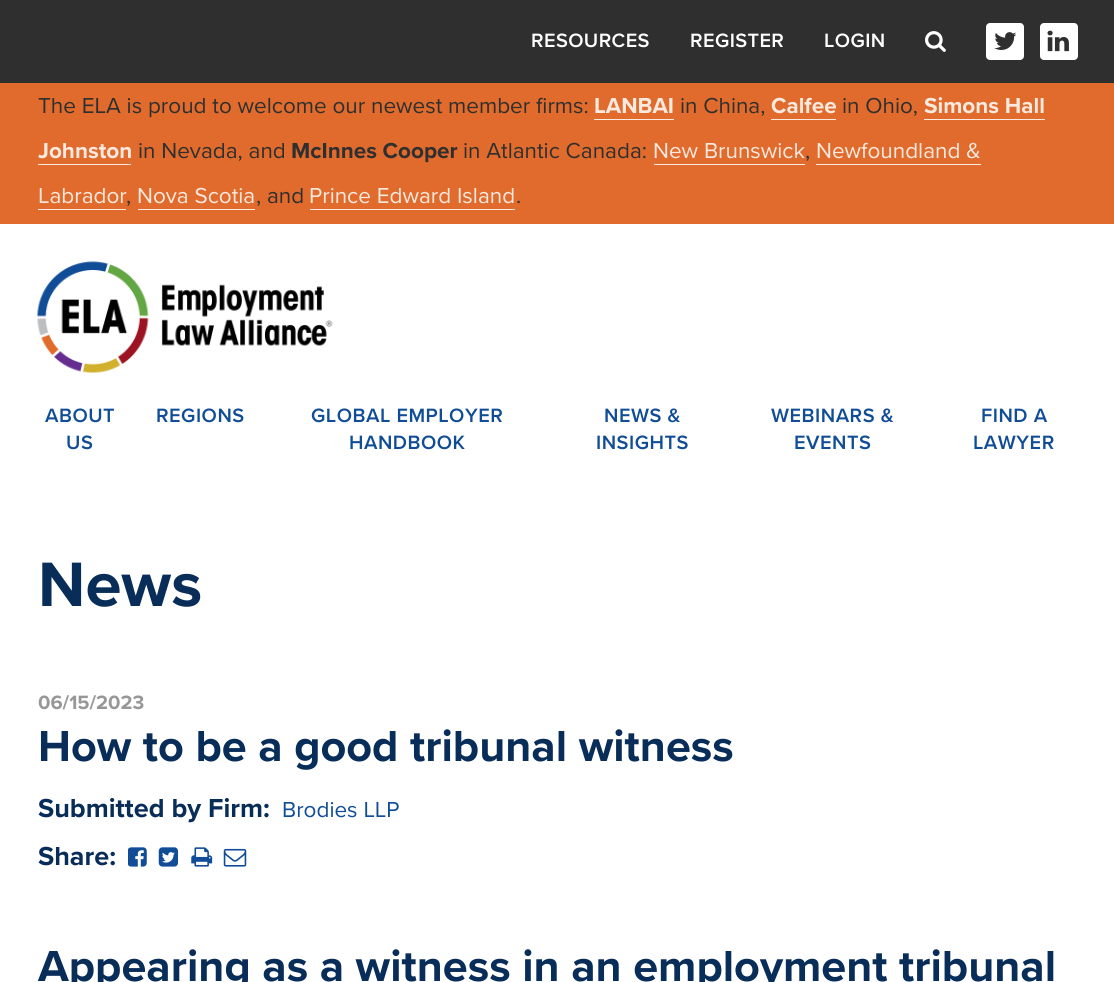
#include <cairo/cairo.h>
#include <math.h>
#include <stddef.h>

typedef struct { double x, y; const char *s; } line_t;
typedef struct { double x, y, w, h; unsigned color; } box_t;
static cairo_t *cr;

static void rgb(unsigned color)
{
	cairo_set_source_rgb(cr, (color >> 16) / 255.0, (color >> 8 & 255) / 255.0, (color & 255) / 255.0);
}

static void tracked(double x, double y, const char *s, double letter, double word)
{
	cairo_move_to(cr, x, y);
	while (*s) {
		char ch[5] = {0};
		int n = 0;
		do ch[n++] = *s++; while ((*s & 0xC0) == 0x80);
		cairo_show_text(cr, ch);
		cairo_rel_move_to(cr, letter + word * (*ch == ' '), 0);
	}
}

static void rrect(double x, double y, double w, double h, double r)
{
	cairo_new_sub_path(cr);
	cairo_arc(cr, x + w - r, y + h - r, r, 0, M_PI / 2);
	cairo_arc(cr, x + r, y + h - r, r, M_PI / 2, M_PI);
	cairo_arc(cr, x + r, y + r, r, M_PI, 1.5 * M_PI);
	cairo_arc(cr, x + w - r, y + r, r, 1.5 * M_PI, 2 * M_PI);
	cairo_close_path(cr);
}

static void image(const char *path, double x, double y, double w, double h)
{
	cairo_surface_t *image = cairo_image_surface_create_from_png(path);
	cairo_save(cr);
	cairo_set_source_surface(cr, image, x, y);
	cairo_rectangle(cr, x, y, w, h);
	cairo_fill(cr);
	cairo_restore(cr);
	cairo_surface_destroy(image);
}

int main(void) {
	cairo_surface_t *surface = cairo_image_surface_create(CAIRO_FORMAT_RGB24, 1114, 982);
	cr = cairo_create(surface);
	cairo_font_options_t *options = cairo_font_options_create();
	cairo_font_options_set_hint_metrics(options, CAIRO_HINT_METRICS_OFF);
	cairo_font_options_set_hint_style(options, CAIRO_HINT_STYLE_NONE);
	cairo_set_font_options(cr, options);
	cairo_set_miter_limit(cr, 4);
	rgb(0xffffff);
	cairo_paint(cr);
	rgb(0x2f2f2f);
	cairo_rectangle(cr, 0, 0, 1114, 83);
	cairo_fill(cr);
	image("img/1.png", 925, 31, 21, 21);
	rgb(0xffffff);
	rrect(986, 23, 38, 37, 4);
	cairo_fill(cr);
	image("img/2.png", 994, 32, 23, 18);
	rrect(1040, 23, 38, 37, 4);
	cairo_fill(cr);
	image("img/3.png", 1047, 30, 22, 22);
	{
		static const box_t items[] = {
			{0, 83, 1114, 141, 0xe06b2c},
			{594, 119, 80, 1, 0xfae9df},
			{771, 119, 65, 1, 0xfae9df},
			{924, 119, 121, 1, 0xfae9df},
			{38, 164, 93, 1, 0xfae9df},
			{654, 164, 151, 1, 0xfae9df},
			{816, 164, 165, 1, 0xfae9df},
			{38, 209, 88, 1, 0xfae9df},
			{138, 209, 117, 1, 0xfae9df},
			{310, 209, 205, 1, 0xfae9df},
		};
		for (size_t i = 0; i < sizeof items / sizeof *items; i++) {
			rgb(items[i].color);
			cairo_rectangle(cr, items[i].x, items[i].y, items[i].w, items[i].h);
			cairo_fill(cr);
		}
	}
	image("img/4.png", 37, 261, 296, 112);
	image("img/5.png", 128, 847, 19, 20);
	image("img/6.png", 158, 847, 21, 20);
	image("img/7.png", 191, 847, 22, 20);
	image("img/8.png", 223, 848, 24, 19);
	cairo_select_font_face(cr, "Proxima Nova SemiBold", CAIRO_FONT_SLANT_NORMAL, CAIRO_FONT_WEIGHT_NORMAL);
	cairo_set_font_size(cr, 20);
	rgb(0xffffff);
	{
		static const line_t items[] = {
			{531, 47, "RESOURCES"},
			{690, 47, "REGISTER"},
			{824, 47, "LOGIN"},
		};
		for (size_t i = 0; i < sizeof items / sizeof *items; i++) {
			tracked(items[i].x, items[i].y, items[i].s, 0.4, 0);
		}
	}
	cairo_select_font_face(cr, "Proxima Nova", CAIRO_FONT_SLANT_NORMAL, CAIRO_FONT_WEIGHT_NORMAL);
	cairo_set_font_size(cr, 22.5);
	rgb(0x2f2f2f);
	cairo_move_to(cr, 38, 113);
	cairo_show_text(cr, "The ELA is proud to welcome our newest member firms:");
	cairo_select_font_face(cr, "Proxima Nova", CAIRO_FONT_SLANT_NORMAL, CAIRO_FONT_WEIGHT_BOLD);
	rgb(0xfae9df);
	cairo_move_to(cr, 594, 113);
	cairo_show_text(cr, "LANBAI");
	cairo_select_font_face(cr, "Proxima Nova", CAIRO_FONT_SLANT_NORMAL, CAIRO_FONT_WEIGHT_NORMAL);
	rgb(0x2f2f2f);
	cairo_move_to(cr, 680, 113);
	cairo_show_text(cr, "in China,");
	cairo_select_font_face(cr, "Proxima Nova", CAIRO_FONT_SLANT_NORMAL, CAIRO_FONT_WEIGHT_BOLD);
	rgb(0xfae9df);
	cairo_move_to(cr, 771, 113);
	cairo_show_text(cr, "Calfee");
	cairo_select_font_face(cr, "Proxima Nova", CAIRO_FONT_SLANT_NORMAL, CAIRO_FONT_WEIGHT_NORMAL);
	rgb(0x2f2f2f);
	cairo_move_to(cr, 842, 113);
	cairo_show_text(cr, "in Ohio,");
	cairo_select_font_face(cr, "Proxima Nova", CAIRO_FONT_SLANT_NORMAL, CAIRO_FONT_WEIGHT_BOLD);
	rgb(0xfae9df);
	cairo_move_to(cr, 924, 113);
	cairo_show_text(cr, "Simons Hall");
	cairo_move_to(cr, 38, 158);
	cairo_show_text(cr, "Johnston");
	cairo_select_font_face(cr, "Proxima Nova", CAIRO_FONT_SLANT_NORMAL, CAIRO_FONT_WEIGHT_NORMAL);
	rgb(0x2f2f2f);
	cairo_move_to(cr, 138, 158);
	cairo_show_text(cr, "in Nevada, and");
	cairo_select_font_face(cr, "Proxima Nova", CAIRO_FONT_SLANT_NORMAL, CAIRO_FONT_WEIGHT_BOLD);
	cairo_move_to(cr, 291, 158);
	cairo_show_text(cr, "McInnes Cooper");
	cairo_select_font_face(cr, "Proxima Nova", CAIRO_FONT_SLANT_NORMAL, CAIRO_FONT_WEIGHT_NORMAL);
	cairo_move_to(cr, 463, 158);
	cairo_show_text(cr, "in Atlantic Canada:");
	rgb(0xfae9df);
	cairo_move_to(cr, 653, 158);
	cairo_show_text(cr, "New Brunswick");
	rgb(0x2f2f2f);
	cairo_move_to(cr, 805, 158);
	cairo_show_text(cr, ",");
	rgb(0xfae9df);
	cairo_move_to(cr, 816, 158);
	cairo_show_text(cr, "Newfoundland &");
	cairo_move_to(cr, 38, 203);
	cairo_show_text(cr, "Labrador");
	rgb(0x2f2f2f);
	cairo_move_to(cr, 126, 203);
	cairo_show_text(cr, ",");
	rgb(0xfae9df);
	cairo_move_to(cr, 137, 203);
	cairo_show_text(cr, "Nova Scotia");
	rgb(0x2f2f2f);
	cairo_move_to(cr, 256, 203);
	cairo_show_text(cr, ", and");
	rgb(0xfae9df);
	cairo_move_to(cr, 309, 203);
	cairo_show_text(cr, "Prince Edward Island");
	rgb(0x2f2f2f);
	cairo_move_to(cr, 516, 203);
	cairo_show_text(cr, ".");
	cairo_select_font_face(cr, "Proxima Nova SemiBold", CAIRO_FONT_SLANT_NORMAL, CAIRO_FONT_WEIGHT_NORMAL);
	cairo_set_font_size(cr, 20);
	rgb(0x114d97);
	{
		static const line_t items[] = {
			{45, 422, "ABOUT"},
			{66, 449, "US"},
			{156, 422, "REGIONS"},
			{311, 422, "GLOBAL EMPLOYER"},
			{349, 449, "HANDBOOK"},
			{604, 422, "NEWS &"},
			{596, 449, "INSIGHTS"},
			{771, 422, "WEBINARS &"},
			{794, 449, "EVENTS"},
			{981, 422, "FIND A"},
			{973, 449, "LAWYER"},
		};
		for (size_t i = 0; i < sizeof items / sizeof *items; i++) {
			tracked(items[i].x, items[i].y, items[i].s, 0.5, 0);
		}
	}
	cairo_select_font_face(cr, "Proxima Nova", CAIRO_FONT_SLANT_NORMAL, CAIRO_FONT_WEIGHT_BOLD);
	cairo_set_font_size(cr, 65);
	rgb(0x092d59);
	cairo_move_to(cr, 38, 606);
	cairo_show_text(cr, "News");
	cairo_set_font_size(cr, 20);
	rgb(0x979797);
	cairo_move_to(cr, 38, 709);
	cairo_show_text(cr, "06/15/2023");
	cairo_set_font_size(cr, 45);
	rgb(0x092d59);
	cairo_move_to(cr, 38, 761);
	cairo_show_text(cr, "How to be a good tribunal witness");
	cairo_set_font_size(cr, 27);
	cairo_move_to(cr, 38, 817);
	cairo_show_text(cr, "Submitted by Firm:");
	cairo_select_font_face(cr, "Proxima Nova", CAIRO_FONT_SLANT_NORMAL, CAIRO_FONT_WEIGHT_NORMAL);
	cairo_set_font_size(cr, 22.5);
	rgb(0x114d97);
	cairo_move_to(cr, 282, 817);
	cairo_show_text(cr, "Brodies LLP");
	cairo_select_font_face(cr, "Proxima Nova", CAIRO_FONT_SLANT_NORMAL, CAIRO_FONT_WEIGHT_BOLD);
	cairo_set_font_size(cr, 27);
	rgb(0x092d59);
	cairo_move_to(cr, 38, 865);
	cairo_show_text(cr, "Share:");
	cairo_set_font_size(cr, 45);
	cairo_move_to(cr, 38, 981);
	cairo_show_text(cr, "Appearing as a witness in an employment tribunal");
	cairo_surface_write_to_png(surface, "page.png");
	cairo_font_options_destroy(options);
	cairo_destroy(cr);
	cairo_surface_destroy(surface);
	return 0;
}
